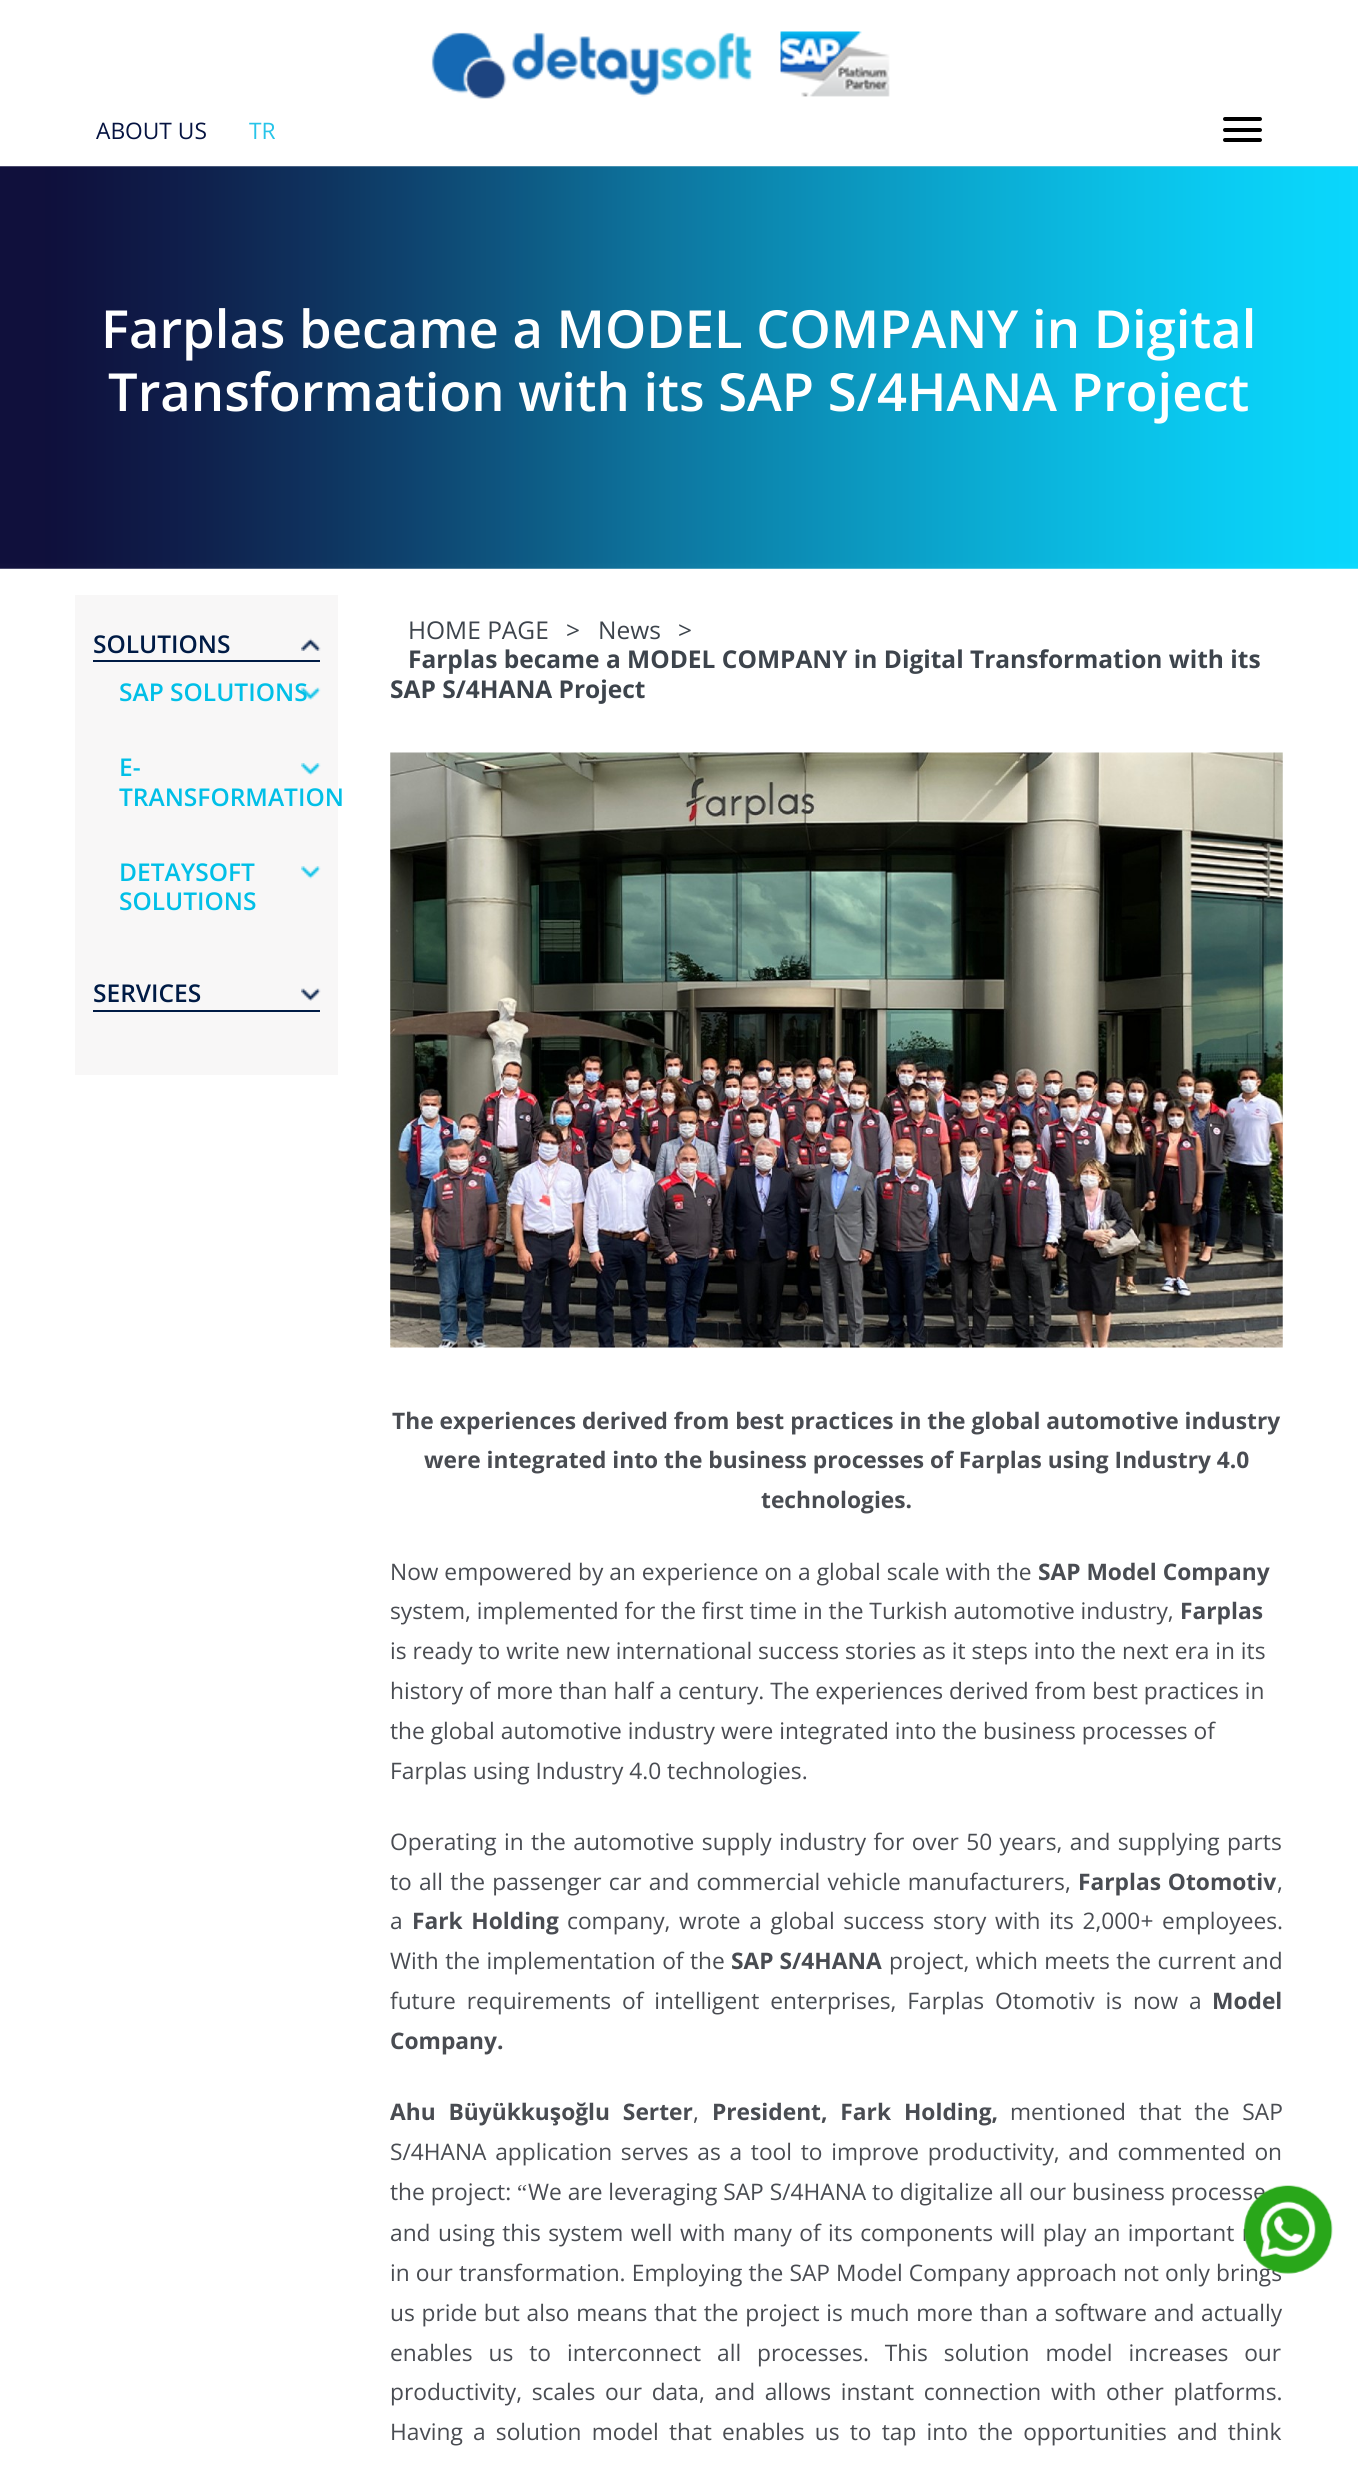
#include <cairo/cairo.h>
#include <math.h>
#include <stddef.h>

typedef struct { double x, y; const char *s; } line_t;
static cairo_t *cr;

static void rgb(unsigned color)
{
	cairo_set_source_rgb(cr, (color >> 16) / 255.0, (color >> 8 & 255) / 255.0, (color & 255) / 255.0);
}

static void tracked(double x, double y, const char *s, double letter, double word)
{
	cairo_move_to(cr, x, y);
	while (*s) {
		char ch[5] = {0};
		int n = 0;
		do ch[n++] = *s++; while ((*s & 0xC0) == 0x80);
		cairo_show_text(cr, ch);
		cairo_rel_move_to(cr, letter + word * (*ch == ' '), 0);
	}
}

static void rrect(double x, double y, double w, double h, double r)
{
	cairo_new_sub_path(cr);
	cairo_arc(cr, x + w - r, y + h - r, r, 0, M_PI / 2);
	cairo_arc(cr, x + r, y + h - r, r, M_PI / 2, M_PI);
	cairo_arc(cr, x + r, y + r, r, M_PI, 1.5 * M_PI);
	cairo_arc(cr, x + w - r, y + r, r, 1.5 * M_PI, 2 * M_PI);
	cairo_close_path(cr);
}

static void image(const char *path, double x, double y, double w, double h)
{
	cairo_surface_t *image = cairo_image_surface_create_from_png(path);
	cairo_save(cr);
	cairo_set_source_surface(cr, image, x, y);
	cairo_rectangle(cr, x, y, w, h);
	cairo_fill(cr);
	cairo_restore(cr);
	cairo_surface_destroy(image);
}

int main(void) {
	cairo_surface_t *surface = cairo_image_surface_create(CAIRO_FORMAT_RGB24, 1358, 2465);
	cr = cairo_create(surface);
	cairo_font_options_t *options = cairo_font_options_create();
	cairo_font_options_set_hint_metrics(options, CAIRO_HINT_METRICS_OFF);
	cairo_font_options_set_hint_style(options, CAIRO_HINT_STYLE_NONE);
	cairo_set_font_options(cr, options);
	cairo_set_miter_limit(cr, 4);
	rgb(0xffffff);
	cairo_paint(cr);
	image("img/1.png", 431, 31, 459, 68);
	rgb(0x000000);
	rrect(1223, 117, 39, 4, 2);
	cairo_fill(cr);
	rrect(1223, 128, 39, 4, 2);
	cairo_fill(cr);
	rrect(1223, 138, 39, 4, 2);
	cairo_fill(cr);
	image("img/2.png", 0, 166, 1358, 403);
	rgb(0xf8f7f7);
	cairo_rectangle(cr, 75, 595, 263, 480);
	cairo_fill(cr);
	image("img/3.png", 301, 638, 20, 13);
	rgb(0x001b45);
	cairo_rectangle(cr, 93, 660, 227, 2);
	cairo_fill(cr);
	image("img/4.png", 301, 687, 20, 13);
	image("img/5.png", 301, 763, 20, 13);
	image("img/6.png", 301, 866, 20, 13);
	image("img/7.png", 301, 988, 20, 13);
	cairo_rectangle(cr, 93, 1010, 227, 2);
	cairo_fill(cr);
	image("img/8.png", 390, 752, 893, 596);
	cairo_select_font_face(cr, "Open Sans", CAIRO_FONT_SLANT_NORMAL, CAIRO_FONT_WEIGHT_NORMAL);
	cairo_set_font_size(cr, 22.75);
	rgb(0x051341);
	cairo_move_to(cr, 96, 139);
	cairo_show_text(cr, "ABOUT US");
	rgb(0x27c4e9);
	cairo_move_to(cr, 249, 139);
	cairo_show_text(cr, "TR");
	cairo_select_font_face(cr, "Open Sans SemiBold", CAIRO_FONT_SLANT_NORMAL, CAIRO_FONT_WEIGHT_NORMAL);
	cairo_set_font_size(cr, 52.5);
	rgb(0xffffff);
	cairo_move_to(cr, 101, 348);
	cairo_show_text(cr, "Farplas became a MODEL COMPANY in Digital");
	cairo_move_to(cr, 108, 411);
	cairo_show_text(cr, "Transformation with its SAP S/4HANA Project");
	cairo_set_font_size(cr, 24.5);
	rgb(0x001b45);
	cairo_move_to(cr, 93, 653);
	cairo_show_text(cr, "SOLUTIONS");
	rgb(0x01bfe7);
	{
		static const line_t items[] = {
			{119, 701, "SAP SOLUTIONS"},
			{119, 776, "E-"},
			{119, 806, "TRANSFORMATION"},
			{119, 881, "DETAYSOFT"},
			{119, 910, "SOLUTIONS"},
		};
		for (size_t i = 0; i < sizeof items / sizeof *items; i++) {
			cairo_move_to(cr, items[i].x, items[i].y);
			cairo_show_text(cr, items[i].s);
		}
	}
	rgb(0x001b45);
	cairo_move_to(cr, 93, 1002);
	cairo_show_text(cr, "SERVICES");
	cairo_select_font_face(cr, "Open Sans", CAIRO_FONT_SLANT_NORMAL, CAIRO_FONT_WEIGHT_NORMAL);
	rgb(0x3d444c);
	{
		static const line_t items[] = {
			{408, 639, "HOME PAGE"},
			{566, 639, ">"},
			{598, 639, "News"},
			{678, 639, ">"},
		};
		for (size_t i = 0; i < sizeof items / sizeof *items; i++) {
			cairo_move_to(cr, items[i].x, items[i].y);
			cairo_show_text(cr, items[i].s);
		}
	}
	cairo_select_font_face(cr, "Open Sans", CAIRO_FONT_SLANT_NORMAL, CAIRO_FONT_WEIGHT_BOLD);
	cairo_move_to(cr, 408, 668);
	cairo_show_text(cr, "Farplas became a MODEL COMPANY in Digital Transformation with its");
	cairo_move_to(cr, 390, 698);
	cairo_show_text(cr, "SAP S/4HANA Project");
	cairo_set_font_size(cr, 22.75);
	rgb(0x494c52);
	{
		static const line_t items[] = {
			{392, 1429, "The experiences derived from best practices in the global automotive industry"},
			{424, 1468, "were integrated into the business processes of Farplas using Industry 4.0"},
			{761, 1508, "technologies."},
		};
		for (size_t i = 0; i < sizeof items / sizeof *items; i++) {
			cairo_move_to(cr, items[i].x, items[i].y);
			cairo_show_text(cr, items[i].s);
		}
	}
	cairo_select_font_face(cr, "Open Sans", CAIRO_FONT_SLANT_NORMAL, CAIRO_FONT_WEIGHT_NORMAL);
	cairo_move_to(cr, 390, 1580);
	cairo_show_text(cr, "Now empowered by an experience on a global scale with the");
	cairo_select_font_face(cr, "Open Sans", CAIRO_FONT_SLANT_NORMAL, CAIRO_FONT_WEIGHT_BOLD);
	cairo_move_to(cr, 1038, 1580);
	cairo_show_text(cr, "SAP Model Company");
	cairo_select_font_face(cr, "Open Sans", CAIRO_FONT_SLANT_NORMAL, CAIRO_FONT_WEIGHT_NORMAL);
	cairo_move_to(cr, 390, 1619);
	cairo_show_text(cr, "system, implemented for the first time in the Turkish automotive industry,");
	cairo_select_font_face(cr, "Open Sans", CAIRO_FONT_SLANT_NORMAL, CAIRO_FONT_WEIGHT_BOLD);
	cairo_move_to(cr, 1180, 1619);
	cairo_show_text(cr, "Farplas");
	cairo_select_font_face(cr, "Open Sans", CAIRO_FONT_SLANT_NORMAL, CAIRO_FONT_WEIGHT_NORMAL);
	{
		static const line_t items[] = {
			{390, 1659, "is ready to write new international success stories as it steps into the next era in its"},
			{390, 1699, "history of more than half a century. The experiences derived from best practices in"},
			{390, 1739, "the global automotive industry were integrated into the business processes of"},
			{390, 1779, "Farplas using Industry 4.0 technologies."},
		};
		for (size_t i = 0; i < sizeof items / sizeof *items; i++) {
			cairo_move_to(cr, items[i].x, items[i].y);
			cairo_show_text(cr, items[i].s);
		}
	}
	tracked(390, 1850, "Operating in the automotive supply industry for over 50 years, and supplying parts", 0, 1.5);
	tracked(390, 1890, "to all the passenger car and commercial vehicle manufacturers,", 0, 1.25);
	cairo_select_font_face(cr, "Open Sans", CAIRO_FONT_SLANT_NORMAL, CAIRO_FONT_WEIGHT_BOLD);
	tracked(1078, 1890, "Farplas Otomotiv", 0, 1);
	cairo_select_font_face(cr, "Open Sans", CAIRO_FONT_SLANT_NORMAL, CAIRO_FONT_WEIGHT_NORMAL);
	cairo_move_to(cr, 1277, 1890);
	cairo_show_text(cr, ",");
	cairo_move_to(cr, 390, 1929);
	cairo_show_text(cr, "a");
	cairo_select_font_face(cr, "Open Sans", CAIRO_FONT_SLANT_NORMAL, CAIRO_FONT_WEIGHT_BOLD);
	tracked(412, 1929, "Fark Holding", 0, 2.75);
	cairo_select_font_face(cr, "Open Sans", CAIRO_FONT_SLANT_NORMAL, CAIRO_FONT_WEIGHT_NORMAL);
	tracked(567, 1929, "company, wrote a global success story with its 2,000+ employees.", 0, 2.75);
	tracked(390, 1969, "With the implementation of the", 0, 0.5);
	cairo_select_font_face(cr, "Open Sans", CAIRO_FONT_SLANT_NORMAL, CAIRO_FONT_WEIGHT_BOLD);
	cairo_move_to(cr, 731, 1969);
	cairo_show_text(cr, "SAP S/4HANA");
	cairo_select_font_face(cr, "Open Sans", CAIRO_FONT_SLANT_NORMAL, CAIRO_FONT_WEIGHT_NORMAL);
	tracked(889, 1969, "project, which meets the current and", 0, 0.5);
	tracked(390, 2009, "future requirements of intelligent enterprises, Farplas Otomotiv is now a", 0, 5);
	cairo_select_font_face(cr, "Open Sans", CAIRO_FONT_SLANT_NORMAL, CAIRO_FONT_WEIGHT_BOLD);
	cairo_move_to(cr, 1212, 2009);
	cairo_show_text(cr, "Model");
	cairo_move_to(cr, 390, 2049);
	cairo_show_text(cr, "Company.");
	tracked(390, 2120, "Ahu Büyükkuşoğlu Serter", 0, 7);
	cairo_select_font_face(cr, "Open Sans", CAIRO_FONT_SLANT_NORMAL, CAIRO_FONT_WEIGHT_NORMAL);
	cairo_move_to(cr, 693, 2120);
	cairo_show_text(cr, ",");
	cairo_select_font_face(cr, "Open Sans", CAIRO_FONT_SLANT_NORMAL, CAIRO_FONT_WEIGHT_BOLD);
	tracked(712, 2120, "President, Fark Holding,", 0, 7);
	cairo_select_font_face(cr, "Open Sans", CAIRO_FONT_SLANT_NORMAL, CAIRO_FONT_WEIGHT_NORMAL);
	tracked(1010, 2120, "mentioned that the SAP", 0, 7);
	tracked(390, 2160, "S/4HANA application serves as a tool to improve productivity, and commented on", 0, 2.75);
	cairo_move_to(cr, 390, 2200);
	cairo_show_text(cr, "the project:");
	cairo_select_font_face(cr, "Liberation Serif", CAIRO_FONT_SLANT_NORMAL, CAIRO_FONT_WEIGHT_NORMAL);
	cairo_move_to(cr, 517, 2200);
	cairo_show_text(cr, "“");
	cairo_select_font_face(cr, "Open Sans", CAIRO_FONT_SLANT_NORMAL, CAIRO_FONT_WEIGHT_NORMAL);
	cairo_move_to(cr, 528, 2200);
	cairo_show_text(cr, "We are leveraging SAP S/4HANA to digitalize all our business processe");
	tracked(390, 2241, "and using this system well with many of its components will play an important r", 0, 1.5);
	tracked(390, 2281, "in our transformation. Employing the SAP Model Company approach not only brings", 0, 0.25);
	tracked(390, 2321, "us pride but also means that the project is much more than a software and actually", 0, 0.8);
	tracked(390, 2361, "enables us to interconnect all processes. This solution model increases our", 0, 10);
	tracked(390, 2400, "productivity, scales our data, and allows instant connection with other platforms.", 0, 3.75);
	tracked(390, 2440, "Having a solution model that enables us to tap into the opportunities and think", 0, 4.25);
	image("img/9.png", 1244, 2185, 89, 89);
	cairo_surface_write_to_png(surface, "page.png");
	cairo_font_options_destroy(options);
	cairo_destroy(cr);
	cairo_surface_destroy(surface);
	return 0;
}
